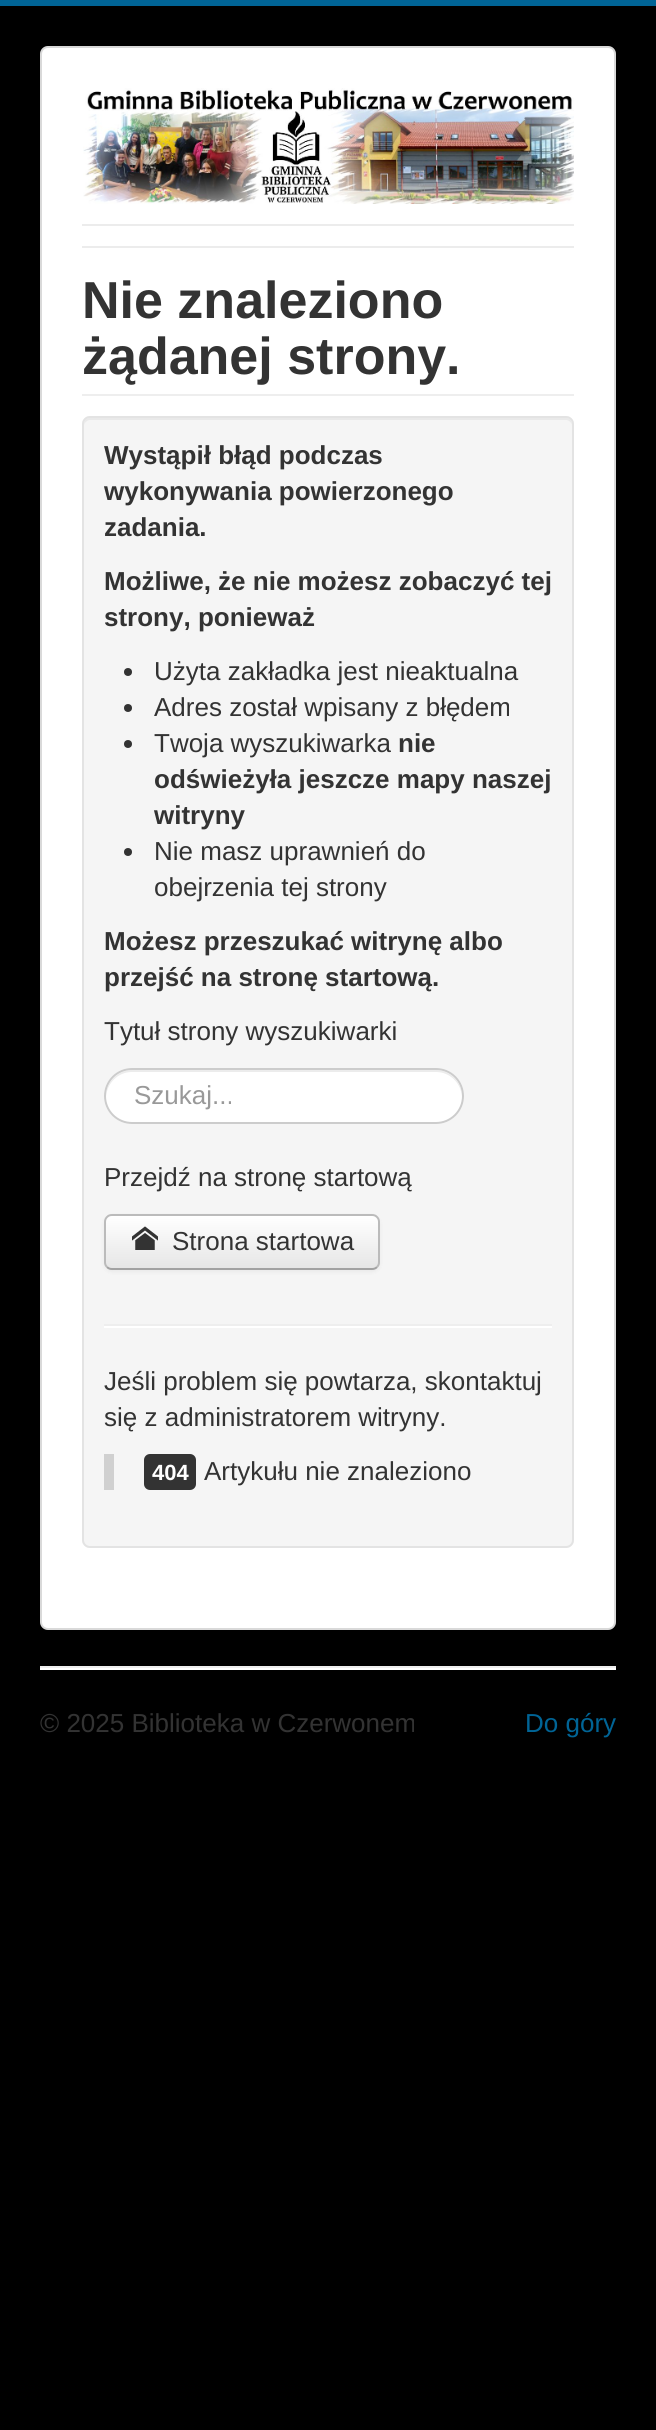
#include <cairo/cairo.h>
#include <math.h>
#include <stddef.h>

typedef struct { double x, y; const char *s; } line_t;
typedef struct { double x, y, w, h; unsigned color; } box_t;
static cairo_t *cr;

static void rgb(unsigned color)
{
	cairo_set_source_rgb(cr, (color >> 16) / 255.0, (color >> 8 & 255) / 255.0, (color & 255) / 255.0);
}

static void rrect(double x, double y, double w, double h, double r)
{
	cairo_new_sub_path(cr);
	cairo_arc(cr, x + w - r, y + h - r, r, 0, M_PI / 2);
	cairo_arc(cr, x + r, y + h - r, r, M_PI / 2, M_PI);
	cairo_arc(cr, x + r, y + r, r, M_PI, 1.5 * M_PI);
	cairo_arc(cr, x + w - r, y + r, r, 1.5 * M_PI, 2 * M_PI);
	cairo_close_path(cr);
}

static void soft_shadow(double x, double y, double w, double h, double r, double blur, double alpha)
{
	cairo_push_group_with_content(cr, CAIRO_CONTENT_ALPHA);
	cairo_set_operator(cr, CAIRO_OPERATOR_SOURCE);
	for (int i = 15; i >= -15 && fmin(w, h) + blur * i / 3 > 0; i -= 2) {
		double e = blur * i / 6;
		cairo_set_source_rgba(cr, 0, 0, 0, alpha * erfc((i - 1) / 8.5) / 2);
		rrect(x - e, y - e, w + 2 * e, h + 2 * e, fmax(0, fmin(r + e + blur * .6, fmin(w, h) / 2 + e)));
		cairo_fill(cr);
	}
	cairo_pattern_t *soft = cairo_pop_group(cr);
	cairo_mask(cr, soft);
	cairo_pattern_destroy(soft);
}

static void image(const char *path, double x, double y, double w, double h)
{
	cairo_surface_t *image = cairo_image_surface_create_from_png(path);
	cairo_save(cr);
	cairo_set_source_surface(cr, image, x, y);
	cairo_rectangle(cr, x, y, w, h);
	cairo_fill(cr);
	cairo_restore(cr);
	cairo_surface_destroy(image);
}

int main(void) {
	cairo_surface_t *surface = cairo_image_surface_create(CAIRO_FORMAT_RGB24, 656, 2430);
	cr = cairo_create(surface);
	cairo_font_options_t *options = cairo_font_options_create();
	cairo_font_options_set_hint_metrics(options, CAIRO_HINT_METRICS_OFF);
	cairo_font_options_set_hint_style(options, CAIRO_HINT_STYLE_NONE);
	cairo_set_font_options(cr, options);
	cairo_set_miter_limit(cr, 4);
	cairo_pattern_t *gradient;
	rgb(0x000000);
	cairo_paint(cr);
	rgb(0x006496);
	cairo_rectangle(cr, 0, 0, 656, 6);
	cairo_fill(cr);
	rgb(0xffffff);
	rrect(40, 46, 576, 1584, 8);
	cairo_fill(cr);
	rrect(41, 47, 574, 1582, 7);
	cairo_set_source_rgba(cr, 0, 0, 0, 0.15);
	cairo_stroke(cr);
	image("img/1.png", 83, 88, 491, 116);
	{
		static const box_t items[] = {
			{82, 224, 492, 2, 0xececec},
			{82, 246, 492, 2, 0xececec},
			{82, 394, 492, 2, 0xeeeeee},
		};
		for (size_t i = 0; i < sizeof items / sizeof *items; i++) {
			rgb(items[i].color);
			cairo_rectangle(cr, items[i].x, items[i].y, items[i].w, items[i].h);
			cairo_fill(cr);
		}
	}
	rgb(0xf5f5f5);
	rrect(82, 416, 492, 1132, 8);
	cairo_fill(cr);
	rgb(0xe9e9e9);
	cairo_new_path(cr);
	cairo_move_to(cr, 90, 420);
	cairo_line_to(cr, 566, 420);
	cairo_curve_to(cr, 569, 420, 572, 423, 572, 426);
	cairo_curve_to(cr, 572, 422, 571, 418, 566, 418);
	cairo_line_to(cr, 90, 418);
	cairo_curve_to(cr, 85, 418, 84, 422, 84, 426);
	cairo_curve_to(cr, 84, 423, 87, 420, 90, 420);
	cairo_close_path(cr);
	cairo_fill(cr);
	rrect(83, 417, 490, 1130, 7);
	rgb(0xe3e3e3);
	cairo_stroke(cr);
	rgb(0x333333);
	cairo_arc(cr, 128, 672, 4, 0, 2 * M_PI);
	cairo_fill(cr);
	cairo_arc(cr, 128, 708, 4, 0, 2 * M_PI);
	cairo_fill(cr);
	cairo_arc(cr, 128, 744, 4, 0, 2 * M_PI);
	cairo_fill(cr);
	cairo_arc(cr, 128, 852, 4, 0, 2 * M_PI);
	cairo_fill(cr);
	rgb(0xffffff);
	rrect(104, 1068, 360, 56, 28);
	cairo_fill(cr);
	rgb(0xececec);
	cairo_new_path(cr);
	cairo_move_to(cr, 132, 1072);
	cairo_line_to(cr, 436, 1072);
	cairo_curve_to(cr, 450, 1072, 461, 1083, 462, 1097);
	cairo_line_to(cr, 462, 1096);
	cairo_curve_to(cr, 462, 1082, 450, 1070, 436, 1070);
	cairo_line_to(cr, 132, 1070);
	cairo_curve_to(cr, 118, 1070, 106, 1082, 106, 1096);
	cairo_line_to(cr, 106, 1097);
	cairo_curve_to(cr, 107, 1083, 118, 1072, 132, 1072);
	cairo_close_path(cr);
	cairo_fill(cr);
	rrect(105, 1069, 358, 54, 27);
	rgb(0xcccccc);
	cairo_stroke(cr);
	rgb(0x000000);
	soft_shadow(104, 1216, 276, 56, 8, 2, 0.05);
	cairo_save(cr);
	rrect(104, 1214, 276, 56, 8);
	cairo_clip(cr);
	gradient = cairo_pattern_create_linear(242, 1216, 242, 1268);
	cairo_pattern_add_color_stop_rgba(gradient, 0, 1, 1, 1, 1);
	cairo_pattern_add_color_stop_rgba(gradient, 1, 0.902, 0.902, 0.902, 1);
	cairo_set_source(cr, gradient);
	cairo_pattern_destroy(gradient);
	cairo_rectangle(cr, 104, 1216, 276, 52);
	cairo_fill(cr);
	cairo_restore(cr);
	cairo_new_path(cr);
	cairo_move_to(cr, 377, 1267);
	cairo_curve_to(cr, 375.5, 1268.5, 374, 1269, 372, 1269);
	cairo_line_to(cr, 112, 1269);
	cairo_curve_to(cr, 110, 1269, 108.5, 1268.5, 107, 1267);
	rgb(0xa2a2a2);
	cairo_stroke(cr);
	cairo_new_path(cr);
	cairo_move_to(cr, 107, 1267);
	cairo_curve_to(cr, 105.5, 1265.5, 105, 1264, 105, 1262);
	cairo_line_to(cr, 105, 1222);
	cairo_curve_to(cr, 105, 1220, 105.5, 1218.5, 107, 1217);
	cairo_curve_to(cr, 108.5, 1215.5, 110, 1215, 112, 1215);
	cairo_line_to(cr, 372, 1215);
	cairo_curve_to(cr, 374, 1215, 375.5, 1215.5, 377, 1217);
	cairo_curve_to(cr, 378.5, 1218.5, 379, 1220, 379, 1222);
	cairo_line_to(cr, 379, 1262);
	cairo_curve_to(cr, 379, 1264, 378.5, 1265.5, 377, 1267);
	rgb(0xbbbbbb);
	cairo_stroke(cr);
	image("img/2.png", 132, 1226, 26, 24);
	{
		static const box_t items[] = {
			{104, 1324, 448, 2, 0xeeeeee},
			{104, 1326, 448, 2, 0xffffff},
			{104, 1454, 10, 36, 0xd0d0d0},
		};
		for (size_t i = 0; i < sizeof items / sizeof *items; i++) {
			rgb(items[i].color);
			cairo_rectangle(cr, items[i].x, items[i].y, items[i].w, items[i].h);
			cairo_fill(cr);
		}
	}
	rgb(0x333333);
	rrect(144, 1454, 52, 36, 6);
	cairo_fill(cr);
	rgb(0xeeeeee);
	cairo_rectangle(cr, 40, 1666, 576, 2);
	cairo_fill(cr);
	rgb(0xffffff);
	cairo_rectangle(cr, 40, 1668, 576, 2);
	cairo_fill(cr);
	cairo_select_font_face(cr, "Liberation Sans", CAIRO_FONT_SLANT_NORMAL, CAIRO_FONT_WEIGHT_BOLD);
	cairo_set_font_size(cr, 52);
	rgb(0x333333);
	cairo_move_to(cr, 82, 318);
	cairo_show_text(cr, "Nie znaleziono");
	cairo_move_to(cr, 82, 374);
	cairo_show_text(cr, "żądanej strony.");
	cairo_set_font_size(cr, 26);
	{
		static const line_t items[] = {
			{104, 464, "Wystąpił błąd podczas"},
			{104, 500, "wykonywania powierzonego"},
			{104, 536, "zadania."},
			{104, 590, "Możliwe, że nie możesz zobaczyć tej"},
			{104, 626, "strony, ponieważ"},
		};
		for (size_t i = 0; i < sizeof items / sizeof *items; i++) {
			cairo_move_to(cr, items[i].x, items[i].y);
			cairo_show_text(cr, items[i].s);
		}
	}
	cairo_select_font_face(cr, "Liberation Sans", CAIRO_FONT_SLANT_NORMAL, CAIRO_FONT_WEIGHT_NORMAL);
	{
		static const line_t items[] = {
			{154, 680, "Użyta zakładka jest nieaktualna"},
			{154, 716, "Adres został wpisany z błędem"},
			{154, 752, "Twoja wyszukiwarka"},
		};
		for (size_t i = 0; i < sizeof items / sizeof *items; i++) {
			cairo_move_to(cr, items[i].x, items[i].y);
			cairo_show_text(cr, items[i].s);
		}
	}
	cairo_select_font_face(cr, "Liberation Sans", CAIRO_FONT_SLANT_NORMAL, CAIRO_FONT_WEIGHT_BOLD);
	{
		static const line_t items[] = {
			{398, 752, "nie"},
			{154, 788, "odświeżyła jeszcze mapy naszej"},
			{154, 824, "witryny"},
		};
		for (size_t i = 0; i < sizeof items / sizeof *items; i++) {
			cairo_move_to(cr, items[i].x, items[i].y);
			cairo_show_text(cr, items[i].s);
		}
	}
	cairo_select_font_face(cr, "Liberation Sans", CAIRO_FONT_SLANT_NORMAL, CAIRO_FONT_WEIGHT_NORMAL);
	cairo_move_to(cr, 154, 860);
	cairo_show_text(cr, "Nie masz uprawnień do");
	cairo_move_to(cr, 154, 896);
	cairo_show_text(cr, "obejrzenia tej strony");
	cairo_select_font_face(cr, "Liberation Sans", CAIRO_FONT_SLANT_NORMAL, CAIRO_FONT_WEIGHT_BOLD);
	cairo_move_to(cr, 104, 950);
	cairo_show_text(cr, "Możesz przeszukać witrynę albo");
	cairo_move_to(cr, 104, 986);
	cairo_show_text(cr, "przejść na stronę startową.");
	cairo_select_font_face(cr, "Liberation Sans", CAIRO_FONT_SLANT_NORMAL, CAIRO_FONT_WEIGHT_NORMAL);
	cairo_move_to(cr, 104, 1040);
	cairo_show_text(cr, "Tytuł strony wyszukiwarki");
	rgb(0x999999);
	cairo_move_to(cr, 134, 1104);
	cairo_show_text(cr, "Szukaj...");
	rgb(0x333333);
	{
		static const line_t items[] = {
			{104, 1186, "Przejdź na stronę startową"},
			{172, 1250, "Strona startowa"},
			{104, 1390, "Jeśli problem się powtarza, skontaktuj"},
			{104, 1426, "się z administratorem witryny."},
		};
		for (size_t i = 0; i < sizeof items / sizeof *items; i++) {
			cairo_move_to(cr, items[i].x, items[i].y);
			cairo_show_text(cr, items[i].s);
		}
	}
	cairo_select_font_face(cr, "Liberation Sans", CAIRO_FONT_SLANT_NORMAL, CAIRO_FONT_WEIGHT_BOLD);
	cairo_set_font_size(cr, 22);
	rgb(0xffffff);
	cairo_move_to(cr, 152, 1480);
	cairo_show_text(cr, "404");
	cairo_select_font_face(cr, "Liberation Sans", CAIRO_FONT_SLANT_NORMAL, CAIRO_FONT_WEIGHT_NORMAL);
	cairo_set_font_size(cr, 26);
	rgb(0x333333);
	cairo_move_to(cr, 204, 1480);
	cairo_show_text(cr, "Artykułu nie znaleziono");
	cairo_move_to(cr, 40, 1732);
	cairo_show_text(cr, "© 2025 Biblioteka w Czerwonem");
	rgb(0x006496);
	cairo_move_to(cr, 525, 1732);
	cairo_show_text(cr, "Do góry");
	cairo_surface_write_to_png(surface, "page.png");
	cairo_font_options_destroy(options);
	cairo_destroy(cr);
	cairo_surface_destroy(surface);
	return 0;
}
